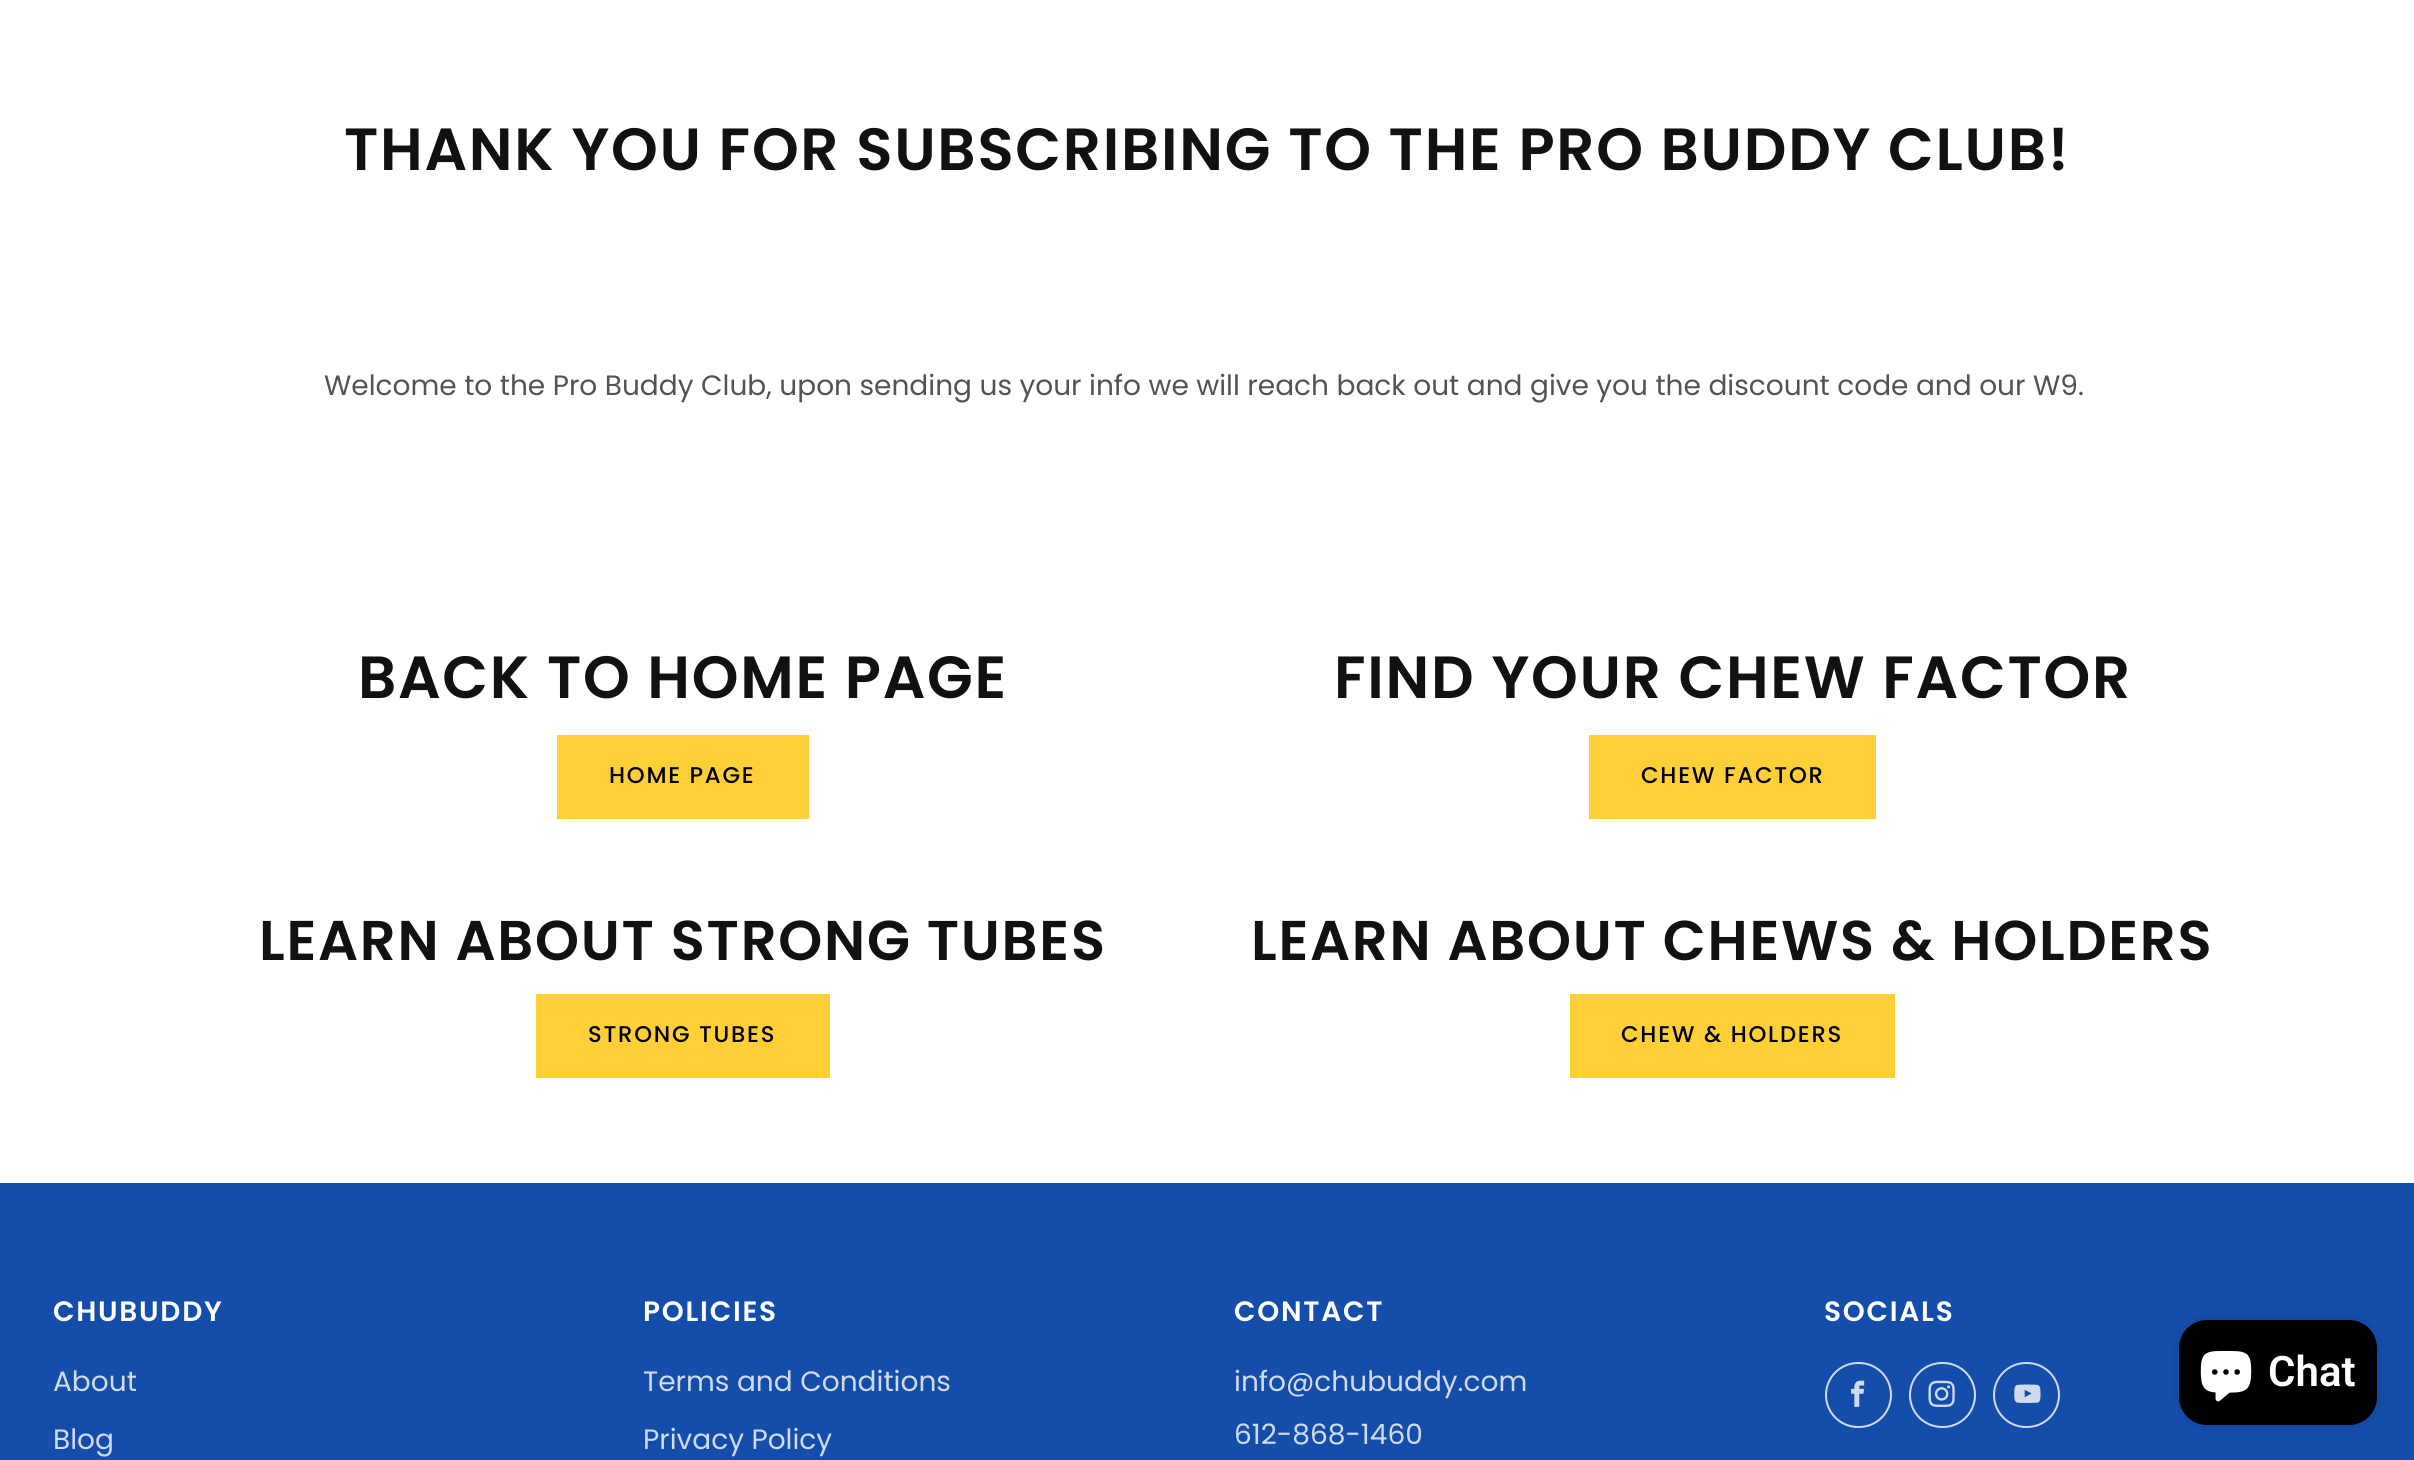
#include <cairo/cairo.h>
#include <math.h>
#include <stddef.h>

typedef struct { double x, y, w, h; unsigned color; } box_t;
static cairo_t *cr;

static void rgb(unsigned color)
{
	cairo_set_source_rgb(cr, (color >> 16) / 255.0, (color >> 8 & 255) / 255.0, (color & 255) / 255.0);
}

static void tracked(double x, double y, const char *s, double letter, double word)
{
	cairo_move_to(cr, x, y);
	while (*s) {
		char ch[5] = {0};
		int n = 0;
		do ch[n++] = *s++; while ((*s & 0xC0) == 0x80);
		cairo_show_text(cr, ch);
		cairo_rel_move_to(cr, letter + word * (*ch == ' '), 0);
	}
}

static void rrect(double x, double y, double w, double h, double r)
{
	cairo_new_sub_path(cr);
	cairo_arc(cr, x + w - r, y + h - r, r, 0, M_PI / 2);
	cairo_arc(cr, x + r, y + h - r, r, M_PI / 2, M_PI);
	cairo_arc(cr, x + r, y + r, r, M_PI, 1.5 * M_PI);
	cairo_arc(cr, x + w - r, y + r, r, 1.5 * M_PI, 2 * M_PI);
	cairo_close_path(cr);
}

static void soft_shadow(double x, double y, double w, double h, double r, double blur, double alpha)
{
	cairo_push_group_with_content(cr, CAIRO_CONTENT_ALPHA);
	cairo_set_operator(cr, CAIRO_OPERATOR_SOURCE);
	for (int i = 15; i >= -15 && fmin(w, h) + blur * i / 3 > 0; i -= 2) {
		double e = blur * i / 6;
		cairo_set_source_rgba(cr, 0, 0, 0, alpha * erfc((i - 1) / 8.5) / 2);
		rrect(x - e, y - e, w + 2 * e, h + 2 * e, fmax(0, fmin(r + e + blur * .6, fmin(w, h) / 2 + e)));
		cairo_fill(cr);
	}
	cairo_pattern_t *soft = cairo_pop_group(cr);
	cairo_mask(cr, soft);
	cairo_pattern_destroy(soft);
}

static void image(const char *path, double x, double y, double w, double h)
{
	cairo_surface_t *image = cairo_image_surface_create_from_png(path);
	cairo_save(cr);
	cairo_set_source_surface(cr, image, x, y);
	cairo_rectangle(cr, x, y, w, h);
	cairo_fill(cr);
	cairo_restore(cr);
	cairo_surface_destroy(image);
}

int main(void) {
	cairo_surface_t *surface = cairo_image_surface_create(CAIRO_FORMAT_RGB24, 2414, 1460);
	cr = cairo_create(surface);
	cairo_font_options_t *options = cairo_font_options_create();
	cairo_font_options_set_hint_metrics(options, CAIRO_HINT_METRICS_OFF);
	cairo_font_options_set_hint_style(options, CAIRO_HINT_STYLE_NONE);
	cairo_set_font_options(cr, options);
	cairo_set_miter_limit(cr, 4);
	rgb(0xffffff);
	cairo_paint(cr);
	{
		static const box_t items[] = {
			{557, 735, 252, 84, 0xfecf36},
			{1589, 735, 287, 84, 0xfecf36},
			{536, 994, 294, 84, 0xfecf36},
			{1570, 994, 325, 84, 0xfecf36},
			{0, 1183, 2414, 277, 0x154dab},
		};
		for (size_t i = 0; i < sizeof items / sizeof *items; i++) {
			rgb(items[i].color);
			cairo_rectangle(cr, items[i].x, items[i].y, items[i].w, items[i].h);
			cairo_fill(cr);
		}
	}
	rrect(1826, 1363, 65, 64, 32);
	rgb(0xd0dbee);
	cairo_stroke(cr);
	image("img/1.png", 1851, 1380, 14, 27);
	rrect(1910, 1363, 65, 64, 32);
	cairo_stroke(cr);
	image("img/2.png", 1928, 1380, 27, 27);
	rrect(1994, 1363, 65, 64, 32);
	cairo_stroke(cr);
	image("img/3.png", 2014, 1384, 27, 19);
	rgb(0x000000);
	soft_shadow(2179, 1320, 198, 105, 28, 4.5, 0.15);
	rgb(0x000000);
	rrect(2179, 1320, 198, 105, 28);
	cairo_fill(cr);
	image("img/4.png", 2200, 1351, 52, 51);
	cairo_select_font_face(cr, "Poppins SemiBold", CAIRO_FONT_SLANT_NORMAL, CAIRO_FONT_WEIGHT_NORMAL);
	cairo_set_font_size(cr, 59.5);
	rgb(0x111111);
	tracked(344, 170, "THANK YOU FOR SUBSCRIBING TO THE PRO BUDDY CLUB!", 1.75, 0);
	cairo_select_font_face(cr, "Poppins", CAIRO_FONT_SLANT_NORMAL, CAIRO_FONT_WEIGHT_NORMAL);
	cairo_set_font_size(cr, 28);
	rgb(0x535353);
	cairo_move_to(cr, 324, 395);
	cairo_show_text(cr, "Welcome to the Pro Buddy Club, upon sending us your info we will reach back out and give you the discount code and our W9.");
	cairo_select_font_face(cr, "Poppins SemiBold", CAIRO_FONT_SLANT_NORMAL, CAIRO_FONT_WEIGHT_NORMAL);
	cairo_set_font_size(cr, 59.5);
	rgb(0x111111);
	tracked(358, 698, "BACK TO HOME PAGE", 1.75, 0);
	cairo_select_font_face(cr, "Poppins Medium", CAIRO_FONT_SLANT_NORMAL, CAIRO_FONT_WEIGHT_NORMAL);
	cairo_set_font_size(cr, 22.75);
	rgb(0x000000);
	tracked(609, 783, "HOME PAGE", 1.75, 0);
	cairo_select_font_face(cr, "Poppins SemiBold", CAIRO_FONT_SLANT_NORMAL, CAIRO_FONT_WEIGHT_NORMAL);
	cairo_set_font_size(cr, 59.5);
	rgb(0x111111);
	tracked(1334, 698, "FIND YOUR CHEW FACTOR", 1.75, 0);
	cairo_select_font_face(cr, "Poppins Medium", CAIRO_FONT_SLANT_NORMAL, CAIRO_FONT_WEIGHT_NORMAL);
	cairo_set_font_size(cr, 22.75);
	rgb(0x000000);
	tracked(1641, 783, "CHEW FACTOR", 1.75, 0);
	cairo_select_font_face(cr, "Poppins SemiBold", CAIRO_FONT_SLANT_NORMAL, CAIRO_FONT_WEIGHT_NORMAL);
	cairo_set_font_size(cr, 56);
	rgb(0x111111);
	tracked(259, 960, "LEARN ABOUT STRONG TUBES", 1.75, 0);
	cairo_select_font_face(cr, "Poppins Medium", CAIRO_FONT_SLANT_NORMAL, CAIRO_FONT_WEIGHT_NORMAL);
	cairo_set_font_size(cr, 22.75);
	rgb(0x000000);
	tracked(588, 1042, "STRONG TUBES", 1.75, 0);
	cairo_select_font_face(cr, "Poppins SemiBold", CAIRO_FONT_SLANT_NORMAL, CAIRO_FONT_WEIGHT_NORMAL);
	cairo_set_font_size(cr, 56);
	rgb(0x111111);
	tracked(1251, 960, "LEARN ABOUT CHEWS & HOLDERS", 1.75, 0);
	cairo_select_font_face(cr, "Poppins Medium", CAIRO_FONT_SLANT_NORMAL, CAIRO_FONT_WEIGHT_NORMAL);
	cairo_set_font_size(cr, 22.75);
	rgb(0x000000);
	tracked(1621, 1042, "CHEW & HOLDERS", 1.75, 0);
	cairo_select_font_face(cr, "Poppins SemiBold", CAIRO_FONT_SLANT_NORMAL, CAIRO_FONT_WEIGHT_NORMAL);
	cairo_set_font_size(cr, 28);
	rgb(0xffffff);
	tracked(53, 1321, "CHUBUDDY", 1.75, 0);
	cairo_select_font_face(cr, "Poppins", CAIRO_FONT_SLANT_NORMAL, CAIRO_FONT_WEIGHT_NORMAL);
	rgb(0xd0dbee);
	cairo_move_to(cr, 53, 1391);
	cairo_show_text(cr, "About");
	cairo_move_to(cr, 53, 1449);
	cairo_show_text(cr, "Blog");
	cairo_select_font_face(cr, "Poppins SemiBold", CAIRO_FONT_SLANT_NORMAL, CAIRO_FONT_WEIGHT_NORMAL);
	rgb(0xffffff);
	tracked(643, 1321, "POLICIES", 1.75, 0);
	cairo_select_font_face(cr, "Poppins", CAIRO_FONT_SLANT_NORMAL, CAIRO_FONT_WEIGHT_NORMAL);
	rgb(0xd0dbee);
	cairo_move_to(cr, 643, 1391);
	cairo_show_text(cr, "Terms and Conditions");
	cairo_move_to(cr, 643, 1449);
	cairo_show_text(cr, "Privacy Policy");
	cairo_select_font_face(cr, "Poppins SemiBold", CAIRO_FONT_SLANT_NORMAL, CAIRO_FONT_WEIGHT_NORMAL);
	rgb(0xffffff);
	tracked(1234, 1321, "CONTACT", 1.75, 0);
	cairo_select_font_face(cr, "Poppins", CAIRO_FONT_SLANT_NORMAL, CAIRO_FONT_WEIGHT_NORMAL);
	rgb(0xd0dbee);
	cairo_move_to(cr, 1234, 1391);
	cairo_show_text(cr, "info@chubuddy.com");
	cairo_move_to(cr, 1234, 1444);
	cairo_show_text(cr, "612-868-1460");
	cairo_select_font_face(cr, "Poppins SemiBold", CAIRO_FONT_SLANT_NORMAL, CAIRO_FONT_WEIGHT_NORMAL);
	rgb(0xffffff);
	tracked(1824, 1321, "SOCIALS", 1.75, 0);
	cairo_select_font_face(cr, "Roboto SemiBold", CAIRO_FONT_SLANT_NORMAL, CAIRO_FONT_WEIGHT_NORMAL);
	cairo_set_font_size(cr, 42);
	cairo_move_to(cr, 2268, 1386);
	cairo_show_text(cr, "Chat");
	cairo_surface_write_to_png(surface, "page.png");
	cairo_font_options_destroy(options);
	cairo_destroy(cr);
	cairo_surface_destroy(surface);
	return 0;
}
